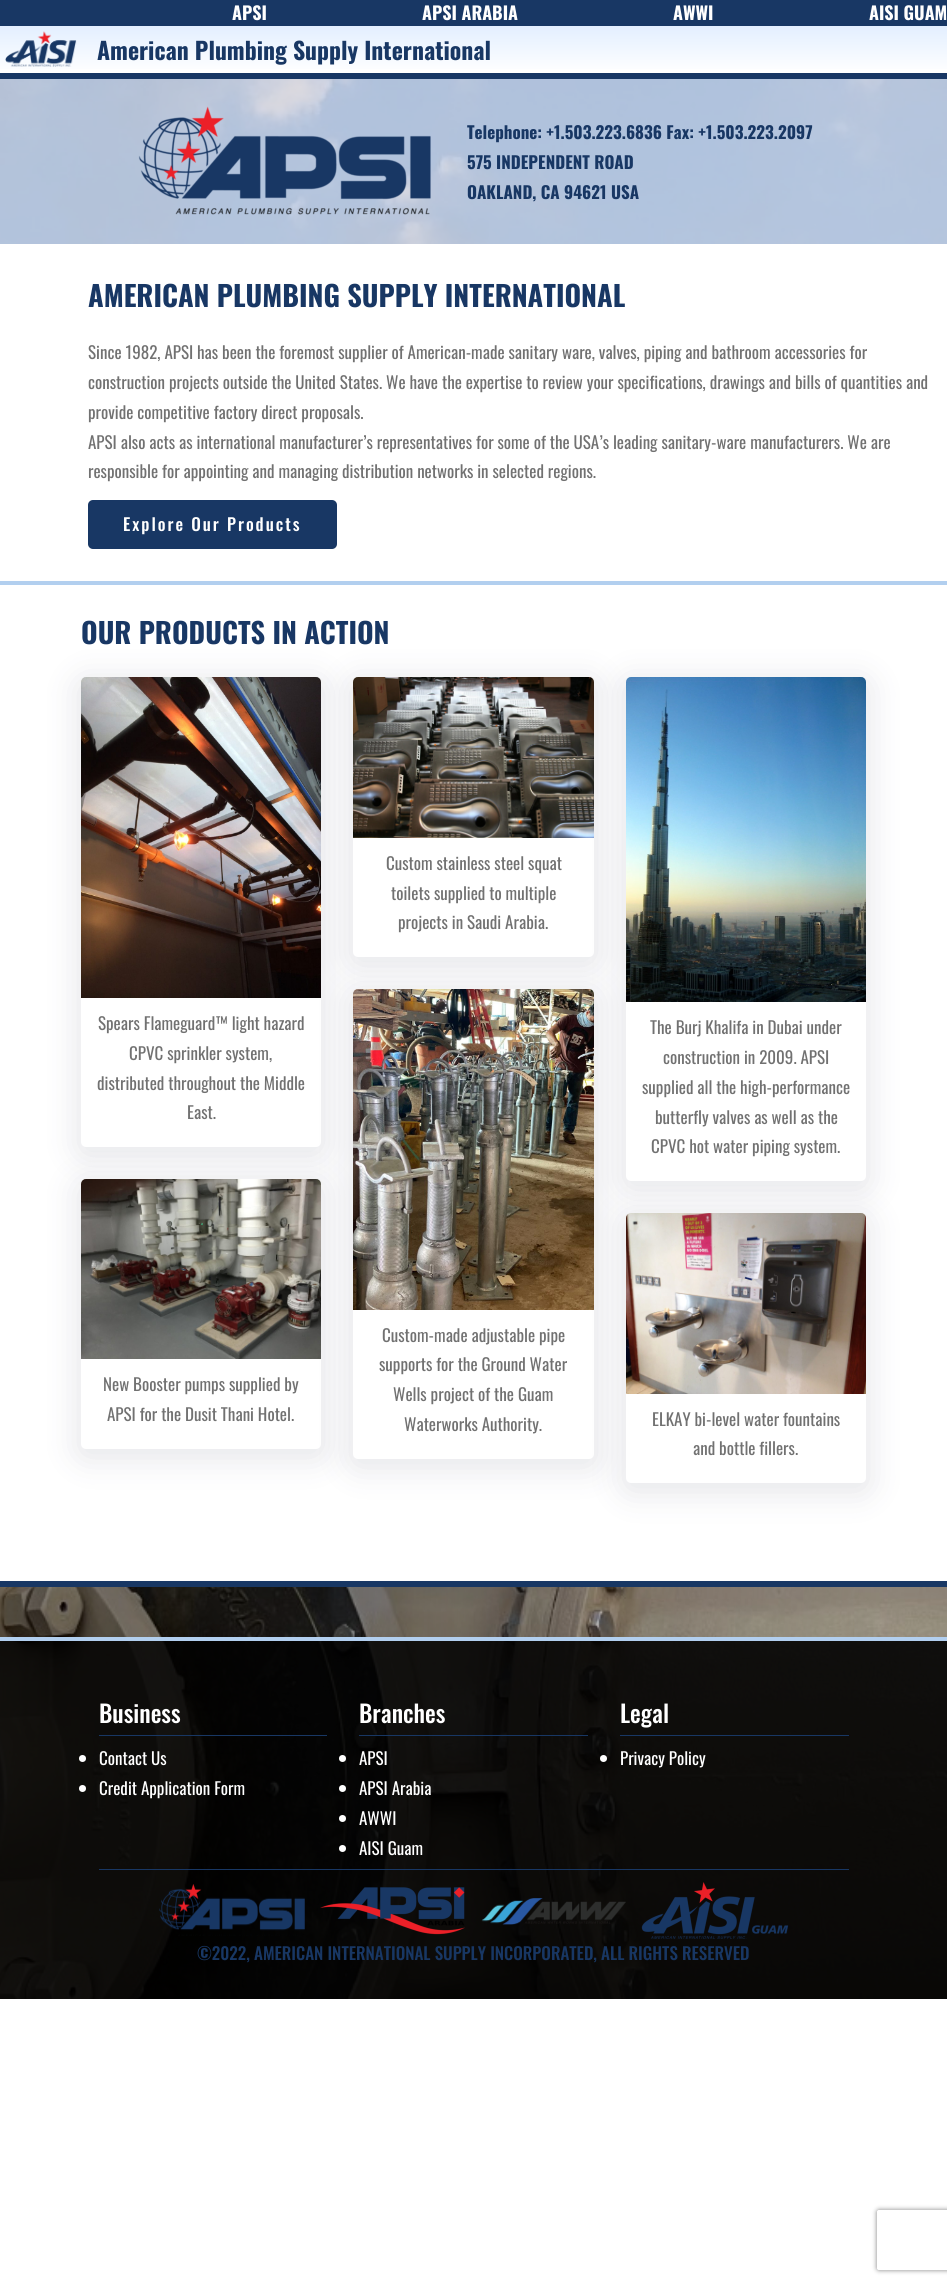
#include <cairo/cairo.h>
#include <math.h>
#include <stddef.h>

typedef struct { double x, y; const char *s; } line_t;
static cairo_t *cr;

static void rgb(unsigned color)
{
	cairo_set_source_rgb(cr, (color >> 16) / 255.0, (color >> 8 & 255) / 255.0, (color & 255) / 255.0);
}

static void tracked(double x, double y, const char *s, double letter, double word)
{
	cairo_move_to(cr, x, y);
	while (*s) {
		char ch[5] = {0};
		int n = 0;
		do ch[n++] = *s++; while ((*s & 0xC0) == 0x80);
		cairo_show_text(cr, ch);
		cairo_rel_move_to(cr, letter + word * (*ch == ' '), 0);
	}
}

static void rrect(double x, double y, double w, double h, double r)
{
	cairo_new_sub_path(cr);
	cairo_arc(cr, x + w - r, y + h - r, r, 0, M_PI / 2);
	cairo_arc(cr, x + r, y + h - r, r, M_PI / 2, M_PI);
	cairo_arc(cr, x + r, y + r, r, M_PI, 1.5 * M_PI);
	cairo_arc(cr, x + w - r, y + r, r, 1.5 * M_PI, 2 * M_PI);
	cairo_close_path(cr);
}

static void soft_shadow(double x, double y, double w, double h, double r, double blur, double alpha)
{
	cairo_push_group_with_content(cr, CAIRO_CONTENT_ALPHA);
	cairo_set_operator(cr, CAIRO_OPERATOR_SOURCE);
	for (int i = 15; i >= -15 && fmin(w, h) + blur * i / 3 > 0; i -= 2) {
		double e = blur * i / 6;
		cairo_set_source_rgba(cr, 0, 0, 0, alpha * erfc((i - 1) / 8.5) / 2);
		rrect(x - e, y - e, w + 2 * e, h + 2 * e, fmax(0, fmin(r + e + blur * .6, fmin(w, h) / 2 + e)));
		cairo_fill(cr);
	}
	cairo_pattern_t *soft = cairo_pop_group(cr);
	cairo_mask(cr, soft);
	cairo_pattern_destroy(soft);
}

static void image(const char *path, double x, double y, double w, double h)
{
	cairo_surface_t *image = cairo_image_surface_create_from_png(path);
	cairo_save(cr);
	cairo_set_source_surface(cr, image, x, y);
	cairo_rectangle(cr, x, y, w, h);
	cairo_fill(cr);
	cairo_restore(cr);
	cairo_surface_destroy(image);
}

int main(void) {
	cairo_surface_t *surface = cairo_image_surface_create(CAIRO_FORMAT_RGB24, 947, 2284);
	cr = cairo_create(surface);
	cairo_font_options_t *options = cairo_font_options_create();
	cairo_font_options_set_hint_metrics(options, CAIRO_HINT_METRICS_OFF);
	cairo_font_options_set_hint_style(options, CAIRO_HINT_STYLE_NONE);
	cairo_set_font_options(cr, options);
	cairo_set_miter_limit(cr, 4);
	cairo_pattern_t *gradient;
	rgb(0xffffff);
	cairo_paint(cr);
	rgb(0x183764);
	cairo_rectangle(cr, 0, 0, 947, 26);
	cairo_fill(cr);
	gradient = cairo_pattern_create_linear(474, 26, 474, 73);
	cairo_pattern_add_color_stop_rgba(gradient, 0, 0.89, 0.937, 1, 1);
	cairo_pattern_add_color_stop_rgba(gradient, 1, 1, 1, 1, 1);
	cairo_set_source(cr, gradient);
	cairo_pattern_destroy(gradient);
	cairo_rectangle(cr, 0, 26, 947, 43);
	cairo_fill(cr);
	image("img/1.png", 5, 31, 72, 36);
	rgb(0x183764);
	cairo_rectangle(cr, 0, 73, 947, 6);
	cairo_fill(cr);
	image("img/2.png", 0, 79, 947, 165);
	image("img/3.png", 138, 106, 293, 109);
	rrect(88, 500, 249, 49, 5);
	cairo_fill(cr);
	rgb(0xb2cfef);
	cairo_rectangle(cr, 0, 581, 947, 4);
	cairo_fill(cr);
	rgb(0x212547);
	soft_shadow(74, 676, 254, 484, 12, 15, 0.1);
	rgb(0xffffff);
	rrect(81, 677, 240, 470, 5);
	cairo_fill(cr);
	image("img/4.png", 81, 677, 240, 321);
	rgb(0x212547);
	soft_shadow(74, 1178, 254, 284, 12, 15, 0.1);
	rgb(0xffffff);
	rrect(81, 1179, 240, 270, 5);
	cairo_fill(cr);
	image("img/5.png", 81, 1179, 240, 180);
	rgb(0x212547);
	soft_shadow(346, 676, 255, 294, 12, 15, 0.1);
	rgb(0xffffff);
	rrect(353, 677, 241, 280, 5);
	cairo_fill(cr);
	image("img/6.png", 353, 677, 241, 161);
	rgb(0x212547);
	soft_shadow(346, 988, 255, 484, 12, 15, 0.1);
	rgb(0xffffff);
	rrect(353, 989, 241, 470, 5);
	cairo_fill(cr);
	image("img/7.png", 353, 989, 241, 321);
	rgb(0x212547);
	soft_shadow(619, 676, 254, 518, 12, 15, 0.1);
	rgb(0xffffff);
	rrect(626, 677, 240, 504, 5);
	cairo_fill(cr);
	image("img/8.png", 626, 677, 240, 325);
	rgb(0x212547);
	soft_shadow(619, 1212, 254, 284, 12, 15, 0.1);
	rgb(0xffffff);
	rrect(626, 1213, 240, 270, 5);
	cairo_fill(cr);
	image("img/9.png", 626, 1213, 240, 181);
	rgb(0x183764);
	cairo_rectangle(cr, 0, 1581, 947, 6);
	cairo_fill(cr);
	image("img/10.png", 0, 1587, 947, 50);
	rgb(0xb2cfef);
	cairo_rectangle(cr, 0, 1637, 947, 4);
	cairo_fill(cr);
	image("img/11.png", 0, 1641, 947, 358);
	rgb(0x183764);
	cairo_rectangle(cr, 99, 1735, 228, 1);
	cairo_fill(cr);
	rgb(0xffffff);
	cairo_arc(cr, 82.5, 1758.5, 3.5, 0, 2 * M_PI);
	cairo_fill(cr);
	cairo_arc(cr, 82.5, 1788.5, 3.5, 0, 2 * M_PI);
	cairo_fill(cr);
	rgb(0x183764);
	cairo_rectangle(cr, 359, 1735, 229, 1);
	cairo_fill(cr);
	rgb(0xffffff);
	cairo_arc(cr, 342.5, 1758.5, 3.5, 0, 2 * M_PI);
	cairo_fill(cr);
	cairo_arc(cr, 342.5, 1788.5, 3.5, 0, 2 * M_PI);
	cairo_fill(cr);
	cairo_arc(cr, 342.5, 1818.5, 3.5, 0, 2 * M_PI);
	cairo_fill(cr);
	cairo_arc(cr, 342.5, 1848.5, 3.5, 0, 2 * M_PI);
	cairo_fill(cr);
	rgb(0x183764);
	cairo_rectangle(cr, 620, 1735, 229, 1);
	cairo_fill(cr);
	rgb(0xffffff);
	cairo_arc(cr, 603.5, 1758.5, 3.5, 0, 2 * M_PI);
	cairo_fill(cr);
	rgb(0x183764);
	cairo_rectangle(cr, 99, 1869, 750, 1);
	cairo_fill(cr);
	image("img/12.png", 159, 1884, 146, 52);
	image("img/13.png", 320, 1887, 145, 48);
	image("img/14.png", 481, 1898, 145, 27);
	image("img/15.png", 641, 1882, 148, 57);
	cairo_save(cr);
	cairo_set_fill_rule(cr, CAIRO_FILL_RULE_EVEN_ODD);
	cairo_new_path(cr);
	cairo_move_to(cr, 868, 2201);
	cairo_line_to(cr, 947, 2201);
	cairo_line_to(cr, 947, 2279);
	cairo_line_to(cr, 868, 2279);
	cairo_close_path(cr);
	cairo_move_to(cr, 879, 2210);
	cairo_line_to(cr, 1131, 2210);
	cairo_curve_to(cr, 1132, 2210, 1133, 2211, 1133, 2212);
	cairo_line_to(cr, 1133, 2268);
	cairo_curve_to(cr, 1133, 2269, 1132, 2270, 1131, 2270);
	cairo_line_to(cr, 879, 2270);
	cairo_curve_to(cr, 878, 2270, 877, 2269, 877, 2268);
	cairo_line_to(cr, 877, 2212);
	cairo_curve_to(cr, 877, 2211, 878, 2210, 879, 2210);
	cairo_close_path(cr);
	cairo_clip(cr);
	rgb(0x808080);
	soft_shadow(877, 2210, 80, 60, 2, 2.5, 1);
	cairo_restore(cr);
	cairo_select_font_face(cr, "Oswald", CAIRO_FONT_SLANT_NORMAL, CAIRO_FONT_WEIGHT_BOLD);
	cairo_set_font_size(cr, 18);
	rgb(0xffffff);
	{
		static const line_t items[] = {
			{232, 20, "APSI"},
			{422, 20, "APSI ARABIA"},
			{673, 20, "AWWI"},
			{869, 20, "AISI GUAM"},
		};
		for (size_t i = 0; i < sizeof items / sizeof *items; i++) {
			cairo_move_to(cr, items[i].x, items[i].y);
			cairo_show_text(cr, items[i].s);
		}
	}
	cairo_set_font_size(cr, 23.7);
	rgb(0x183764);
	cairo_move_to(cr, 97, 60);
	cairo_show_text(cr, "American Plumbing Supply International");
	cairo_set_font_size(cr, 17);
	{
		static const line_t items[] = {
			{467, 139, "Telephone: +1.503.223.6836 Fax: +1.503.223.2097"},
			{467, 169, "575 INDEPENDENT ROAD"},
			{467, 199, "OAKLAND, CA 94621 USA"},
		};
		for (size_t i = 0; i < sizeof items / sizeof *items; i++) {
			cairo_move_to(cr, items[i].x, items[i].y);
			cairo_show_text(cr, items[i].s);
		}
	}
	cairo_set_font_size(cr, 28.4);
	cairo_move_to(cr, 88, 307);
	cairo_show_text(cr, "AMERICAN PLUMBING SUPPLY INTERNATIONAL");
	cairo_select_font_face(cr, "Oswald", CAIRO_FONT_SLANT_NORMAL, CAIRO_FONT_WEIGHT_NORMAL);
	cairo_set_font_size(cr, 17);
	rgb(0x717171);
	{
		static const line_t items[] = {
			{88, 359, "Since 1982, APSI has been the foremost supplier of American-made sanitary ware, valves, piping and bathroom accessories for"},
			{88, 389, "construction projects outside the United States. We have the expertise to review your specifications, drawings and bills of quantities and"},
			{88, 419, "provide competitive factory direct proposals."},
			{88, 449, "APSI also acts as international manufacturer’s representatives for some of the USA’s leading sanitary-ware manufacturers. We are"},
			{88, 478, "responsible for appointing and managing distribution networks in selected regions."},
		};
		for (size_t i = 0; i < sizeof items / sizeof *items; i++) {
			cairo_move_to(cr, items[i].x, items[i].y);
			cairo_show_text(cr, items[i].s);
		}
	}
	cairo_select_font_face(cr, "Oswald Medium", CAIRO_FONT_SLANT_NORMAL, CAIRO_FONT_WEIGHT_NORMAL);
	rgb(0xffffff);
	tracked(123, 531, "Explore Our Products", 2, 0);
	cairo_select_font_face(cr, "Oswald", CAIRO_FONT_SLANT_NORMAL, CAIRO_FONT_WEIGHT_BOLD);
	cairo_set_font_size(cr, 28.4);
	rgb(0x183764);
	cairo_move_to(cr, 81, 644);
	cairo_show_text(cr, "OUR PRODUCTS IN ACTION");
	cairo_select_font_face(cr, "Oswald", CAIRO_FONT_SLANT_NORMAL, CAIRO_FONT_WEIGHT_NORMAL);
	cairo_set_font_size(cr, 17);
	rgb(0x717171);
	{
		static const line_t items[] = {
			{98, 1030, "Spears Flameguard™ light hazard"},
			{129, 1060, "CPVC sprinkler system,"},
			{97, 1090, "distributed throughout the Middle"},
			{187, 1119, "East."},
			{103, 1391, "New Booster pumps supplied by"},
			{107, 1421, "APSI for the Dusit Thani Hotel."},
			{386, 870, "Custom stainless steel squat"},
			{391, 900, "toilets supplied to multiple"},
			{398, 929, "projects in Saudi Arabia."},
			{382, 1342, "Custom-made adjustable pipe"},
			{379, 1371, "supports for the Ground Water"},
			{393, 1401, "Wells project of the Guam"},
			{404, 1431, "Waterworks Authority."},
			{650, 1034, "The Burj Khalifa in Dubai under"},
			{663, 1064, "construction in 2009. APSI"},
			{642, 1094, "supplied all the high-performance"},
			{655, 1124, "butterfly valves as well as the"},
			{651, 1153, "CPVC hot water piping system."},
			{652, 1426, "ELKAY bi-level water fountains"},
			{693, 1455, "and bottle fillers."},
		};
		for (size_t i = 0; i < sizeof items / sizeof *items; i++) {
			cairo_move_to(cr, items[i].x, items[i].y);
			cairo_show_text(cr, items[i].s);
		}
	}
	cairo_select_font_face(cr, "Oswald Medium", CAIRO_FONT_SLANT_NORMAL, CAIRO_FONT_WEIGHT_NORMAL);
	cairo_set_font_size(cr, 24);
	rgb(0xffffff);
	cairo_move_to(cr, 99, 1723);
	cairo_show_text(cr, "Business");
	cairo_select_font_face(cr, "Oswald", CAIRO_FONT_SLANT_NORMAL, CAIRO_FONT_WEIGHT_NORMAL);
	cairo_set_font_size(cr, 17);
	cairo_move_to(cr, 99, 1765);
	cairo_show_text(cr, "Contact Us");
	cairo_move_to(cr, 99, 1795);
	cairo_show_text(cr, "Credit Application Form");
	cairo_select_font_face(cr, "Oswald Medium", CAIRO_FONT_SLANT_NORMAL, CAIRO_FONT_WEIGHT_NORMAL);
	cairo_set_font_size(cr, 24);
	cairo_move_to(cr, 359, 1723);
	cairo_show_text(cr, "Branches");
	cairo_select_font_face(cr, "Oswald", CAIRO_FONT_SLANT_NORMAL, CAIRO_FONT_WEIGHT_NORMAL);
	cairo_set_font_size(cr, 17);
	{
		static const line_t items[] = {
			{359, 1765, "APSI"},
			{359, 1795, "APSI Arabia"},
			{359, 1825, "AWWI"},
			{359, 1855, "AISI Guam"},
		};
		for (size_t i = 0; i < sizeof items / sizeof *items; i++) {
			cairo_move_to(cr, items[i].x, items[i].y);
			cairo_show_text(cr, items[i].s);
		}
	}
	cairo_select_font_face(cr, "Oswald Medium", CAIRO_FONT_SLANT_NORMAL, CAIRO_FONT_WEIGHT_NORMAL);
	cairo_set_font_size(cr, 24);
	cairo_move_to(cr, 620, 1723);
	cairo_show_text(cr, "Legal");
	cairo_select_font_face(cr, "Oswald", CAIRO_FONT_SLANT_NORMAL, CAIRO_FONT_WEIGHT_NORMAL);
	cairo_set_font_size(cr, 17);
	cairo_move_to(cr, 620, 1765);
	cairo_show_text(cr, "Privacy Policy");
	cairo_select_font_face(cr, "Oswald Medium", CAIRO_FONT_SLANT_NORMAL, CAIRO_FONT_WEIGHT_NORMAL);
	rgb(0x183764);
	cairo_move_to(cr, 197, 1960);
	cairo_show_text(cr, "©2022, AMERICAN INTERNATIONAL SUPPLY INCORPORATED, ALL RIGHTS RESERVED");
	cairo_surface_write_to_png(surface, "page.png");
	cairo_font_options_destroy(options);
	cairo_destroy(cr);
	cairo_surface_destroy(surface);
	return 0;
}
